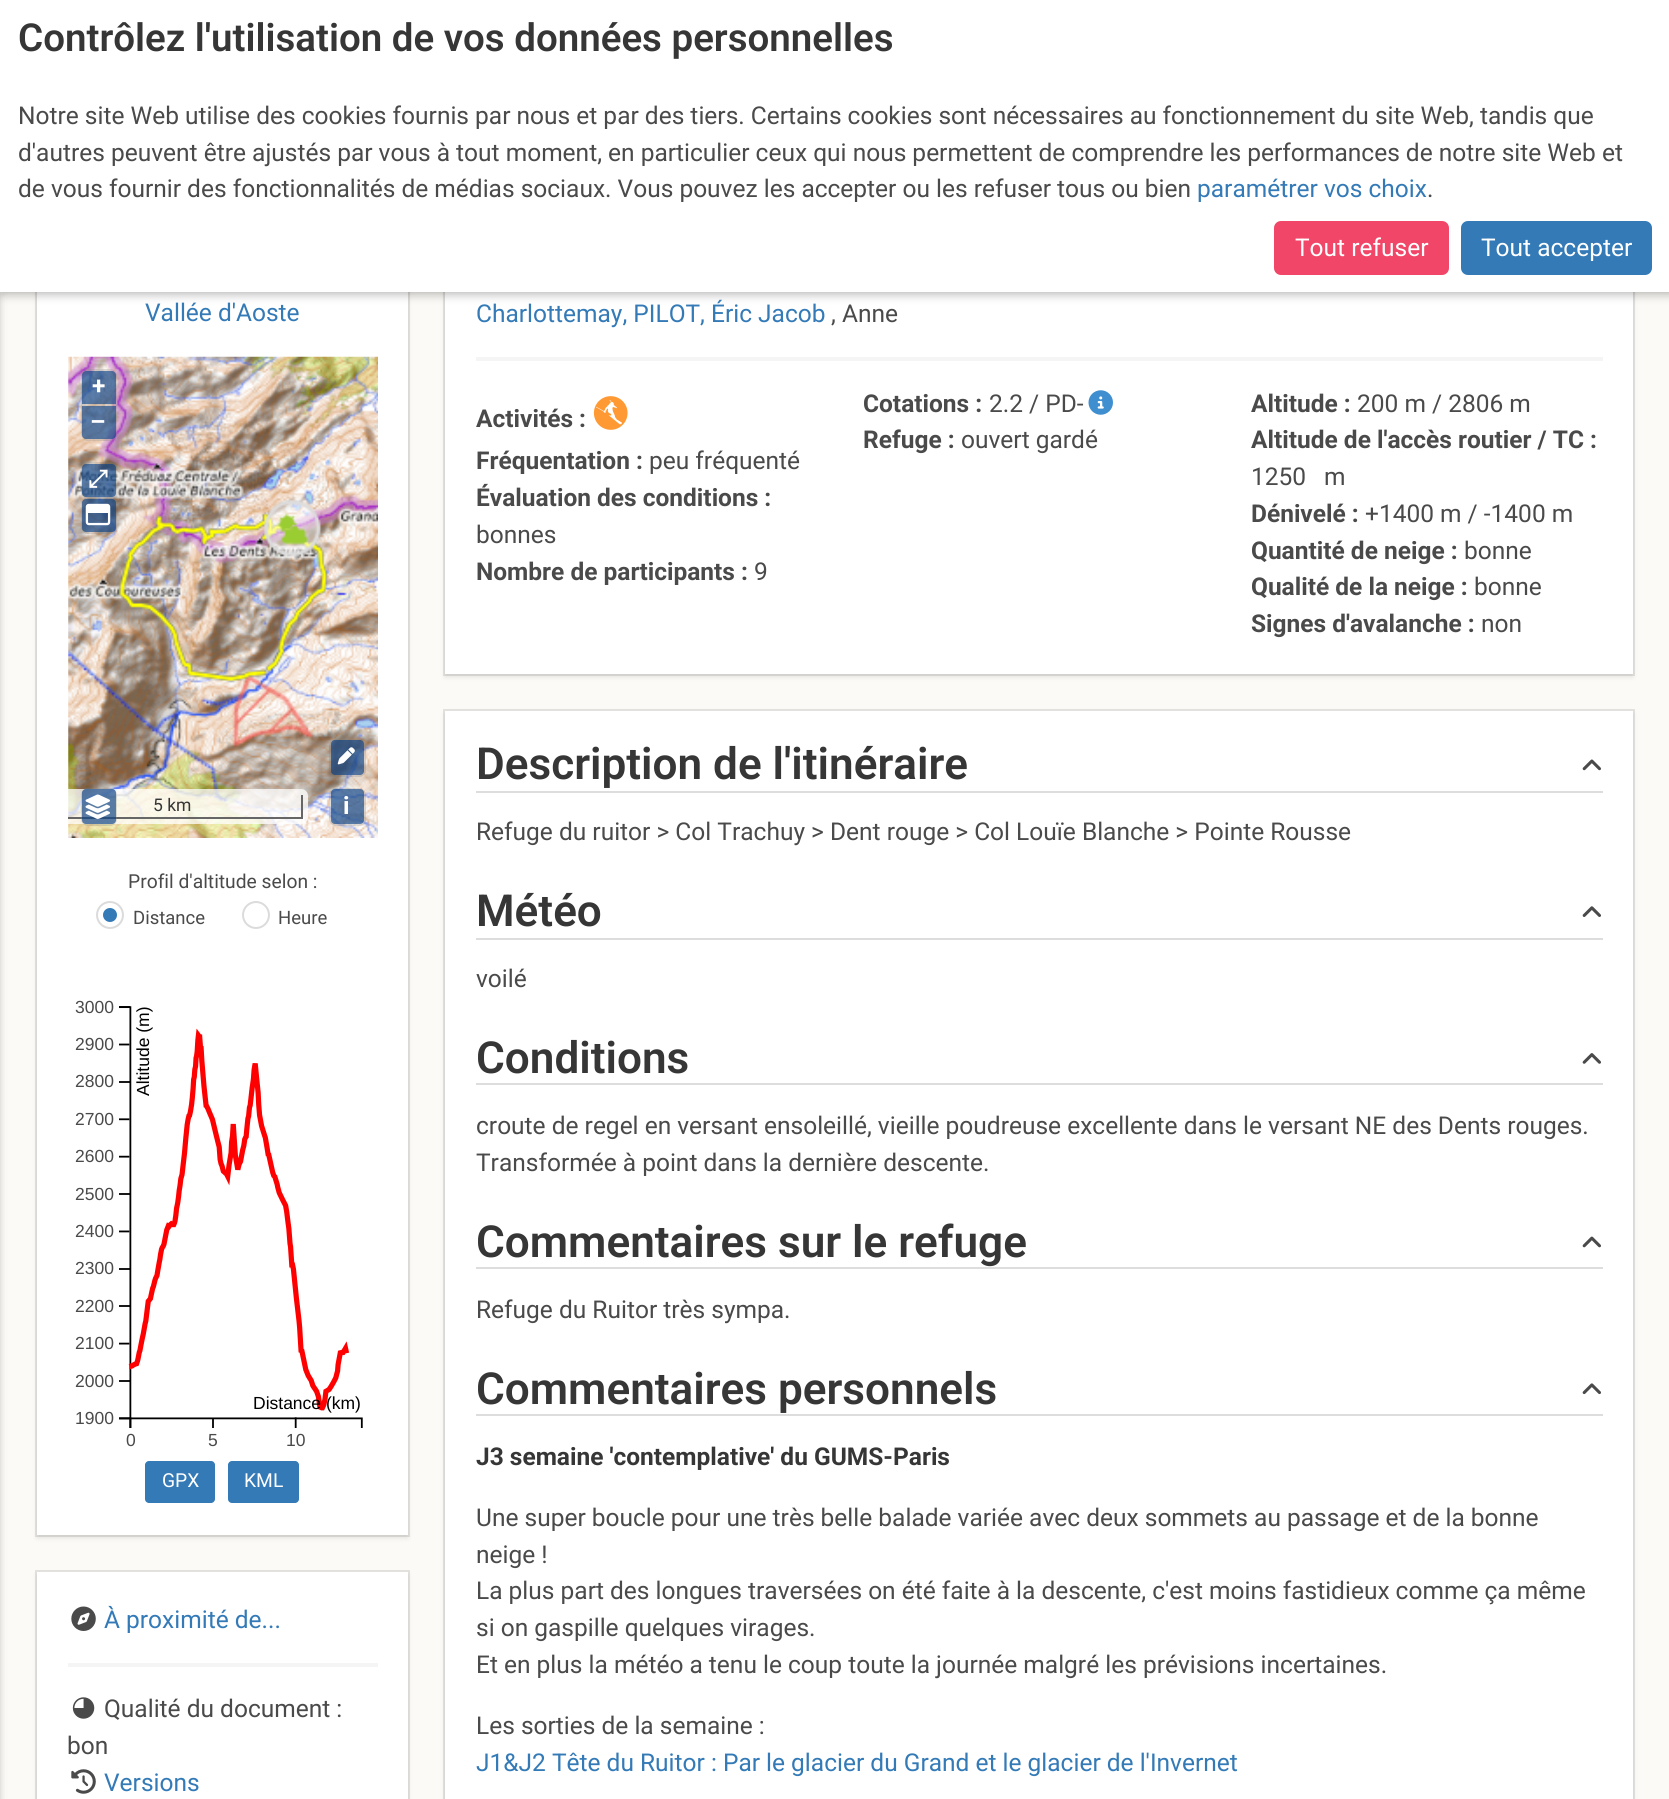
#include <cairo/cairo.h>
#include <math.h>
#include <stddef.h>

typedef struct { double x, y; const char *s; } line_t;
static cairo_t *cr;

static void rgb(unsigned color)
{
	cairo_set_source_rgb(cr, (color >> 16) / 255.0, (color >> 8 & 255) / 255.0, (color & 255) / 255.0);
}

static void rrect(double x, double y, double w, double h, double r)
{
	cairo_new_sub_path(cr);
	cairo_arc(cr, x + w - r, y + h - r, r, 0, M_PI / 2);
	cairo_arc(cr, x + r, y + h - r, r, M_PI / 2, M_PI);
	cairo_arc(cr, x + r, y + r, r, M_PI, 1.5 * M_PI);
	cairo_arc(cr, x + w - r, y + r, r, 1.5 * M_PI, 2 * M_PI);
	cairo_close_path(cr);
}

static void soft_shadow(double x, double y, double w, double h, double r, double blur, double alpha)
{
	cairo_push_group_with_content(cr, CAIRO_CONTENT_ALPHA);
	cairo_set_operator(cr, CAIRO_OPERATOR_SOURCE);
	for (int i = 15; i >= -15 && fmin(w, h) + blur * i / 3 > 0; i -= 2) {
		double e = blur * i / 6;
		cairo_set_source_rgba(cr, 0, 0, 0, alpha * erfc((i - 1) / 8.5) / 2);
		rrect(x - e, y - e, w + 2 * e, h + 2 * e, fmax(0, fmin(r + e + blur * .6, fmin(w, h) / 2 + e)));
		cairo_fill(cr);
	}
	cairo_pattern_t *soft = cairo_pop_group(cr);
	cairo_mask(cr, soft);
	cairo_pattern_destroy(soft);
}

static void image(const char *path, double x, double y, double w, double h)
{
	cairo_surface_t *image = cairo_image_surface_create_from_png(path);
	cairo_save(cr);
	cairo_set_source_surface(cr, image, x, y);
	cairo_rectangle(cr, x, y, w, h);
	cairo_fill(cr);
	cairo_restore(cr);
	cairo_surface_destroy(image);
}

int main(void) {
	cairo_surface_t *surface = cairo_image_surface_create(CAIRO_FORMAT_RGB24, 1669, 1799);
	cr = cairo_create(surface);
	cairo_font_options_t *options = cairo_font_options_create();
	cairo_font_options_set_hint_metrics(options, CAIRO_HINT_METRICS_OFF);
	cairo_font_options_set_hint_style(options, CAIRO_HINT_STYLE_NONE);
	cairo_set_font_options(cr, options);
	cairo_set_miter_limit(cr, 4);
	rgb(0xfbfaf6);
	cairo_paint(cr);
	rgb(0x000000);
	soft_shadow(-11, 2, 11, 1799, 0, 3.5, 0.2);
	cairo_rectangle(cr, 36, 190, 373, 1346);
	rgb(0xe3e2de);
	cairo_stroke(cr);
	rgb(0x0a0a0a);
	soft_shadow(37, 194, 371, 1344, 0, 2.5, 0.1);
	rgb(0xffffff);
	cairo_rectangle(cr, 37, 292, 371, 1243);
	cairo_fill(cr);
	cairo_rectangle(cr, 444, 190, 1190, 485);
	rgb(0xe3e2de);
	cairo_stroke(cr);
	rgb(0x0a0a0a);
	soft_shadow(445, 194, 1188, 483, 0, 2.5, 0.1);
	rgb(0xffffff);
	cairo_rectangle(cr, 445, 292, 1188, 382);
	cairo_fill(cr);
	rgb(0x000000);
	soft_shadow(2, 2, 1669, 292, 0, 5, 0.3);
	rgb(0xffffff);
	cairo_rectangle(cr, 0, 0, 1669, 292);
	cairo_fill(cr);
	rgb(0xf14668);
	rrect(1274, 221, 175, 54, 7);
	cairo_fill(cr);
	rgb(0x337ab7);
	rrect(1461, 221, 191, 54, 7);
	cairo_fill(cr);
	image("img/1.png", 68, 356, 310, 482);
	cairo_set_source_rgba(cr, 0.502, 0.502, 0.502, 0.25);
	rrect(81, 369, 36, 72, 7);
	cairo_fill(cr);
	cairo_set_source_rgba(cr, 0, 0.235, 0.533, 0.6);
	cairo_new_path(cr);
	cairo_move_to(cr, 86, 371);
	cairo_line_to(cr, 112, 371);
	cairo_curve_to(cr, 114, 371, 116, 373, 116, 375);
	cairo_line_to(cr, 116, 404);
	cairo_line_to(cr, 82, 404);
	cairo_line_to(cr, 82, 375);
	cairo_curve_to(cr, 82, 373, 84, 371, 86, 371);
	cairo_close_path(cr);
	cairo_fill(cr);
	cairo_new_path(cr);
	cairo_move_to(cr, 82, 406);
	cairo_line_to(cr, 116, 406);
	cairo_line_to(cr, 116, 435);
	cairo_curve_to(cr, 116, 437, 114, 439, 112, 439);
	cairo_line_to(cr, 86, 439);
	cairo_curve_to(cr, 84, 439, 82, 437, 82, 435);
	cairo_close_path(cr);
	cairo_fill(cr);
	cairo_set_source_rgba(cr, 0.502, 0.502, 0.502, 0.25);
	rrect(81, 497, 36, 37, 7);
	cairo_fill(cr);
	rrect(81, 462, 36, 37, 7);
	cairo_fill(cr);
	cairo_set_source_rgba(cr, 0, 0.235, 0.533, 0.6);
	rrect(82, 464, 34, 33, 4);
	cairo_fill(cr);
	rrect(82, 499, 34, 33, 4);
	cairo_fill(cr);
	image("img/2.png", 85, 503, 26, 23);
	cairo_set_source_rgba(cr, 0.502, 0.502, 0.502, 0.25);
	rrect(329, 739, 37, 38, 7);
	cairo_fill(cr);
	cairo_set_source_rgba(cr, 0, 0.235, 0.533, 0.6);
	rrect(331, 740, 33, 35, 4);
	cairo_fill(cr);
	image("img/3.png", 337, 747, 18, 18);
	cairo_set_source_rgba(cr, 1, 1, 1, 0.75);
	cairo_new_path(cr);
	cairo_move_to(cr, 68, 789);
	cairo_line_to(cr, 301, 789);
	cairo_curve_to(cr, 305, 789, 308, 792, 308, 796);
	cairo_line_to(cr, 308, 817);
	cairo_curve_to(cr, 308, 821, 305, 824, 301, 824);
	cairo_line_to(cr, 68, 824);
	cairo_close_path(cr);
	cairo_fill(cr);
	rgb(0x666666);
	cairo_rectangle(cr, 301, 795, 2, 24);
	cairo_fill(cr);
	cairo_rectangle(cr, 68, 817, 235, 2);
	cairo_fill(cr);
	cairo_set_source_rgba(cr, 0.502, 0.502, 0.502, 0.25);
	rrect(81, 788, 36, 38, 7);
	cairo_fill(cr);
	cairo_set_source_rgba(cr, 0, 0.235, 0.533, 0.6);
	rrect(82, 789, 34, 35, 4);
	cairo_fill(cr);
	image("img/4.png", 85, 794, 25, 25);
	cairo_set_source_rgba(cr, 0.502, 0.502, 0.502, 0.25);
	rrect(329, 788, 37, 38, 7);
	cairo_fill(cr);
	cairo_set_source_rgba(cr, 0, 0.235, 0.533, 0.6);
	rrect(331, 789, 33, 35, 4);
	cairo_fill(cr);
	cairo_arc(cr, 110, 915, 13, 0, 2 * M_PI);
	rgb(0xdbdbdb);
	cairo_stroke(cr);
	rgb(0x337ab7);
	cairo_arc(cr, 110, 915, 7, 0, 2 * M_PI);
	cairo_fill(cr);
	cairo_arc(cr, 256, 915, 13, 0, 2 * M_PI);
	rgb(0xdbdbdb);
	cairo_stroke(cr);
	image("img/5.png", 119, 1006, 244, 422);
	rgb(0x337ab7);
	rrect(145, 1461, 70, 42, 4);
	cairo_fill(cr);
	rrect(228, 1461, 71, 42, 4);
	cairo_fill(cr);
	cairo_rectangle(cr, 36, 1571, 373, 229);
	rgb(0xe3e2de);
	cairo_stroke(cr);
	rgb(0x0a0a0a);
	soft_shadow(37, 1575, 371, 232, 0, 2.5, 0.1);
	rgb(0xffffff);
	cairo_rectangle(cr, 37, 1572, 371, 227);
	cairo_fill(cr);
	image("img/6.png", 71, 1606, 25, 25);
	rgb(0xf5f5f5);
	cairo_rectangle(cr, 68, 1663, 310, 4);
	cairo_fill(cr);
	image("img/7.png", 72, 1697, 23, 22);
	image("img/8.png", 71, 1769, 25, 25);
	cairo_rectangle(cr, 476, 357, 1127, 4);
	cairo_fill(cr);
	image("img/9.png", 593, 396, 35, 34);
	image("img/10.png", 1088, 390, 25, 25);
	cairo_rectangle(cr, 444, 710, 1190, 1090);
	rgb(0xe3e2de);
	cairo_stroke(cr);
	rgb(0x0a0a0a);
	soft_shadow(445, 714, 1188, 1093, 0, 2.5, 0.1);
	rgb(0xffffff);
	cairo_rectangle(cr, 445, 711, 1188, 1088);
	cairo_fill(cr);
	rgb(0xdddddd);
	cairo_rectangle(cr, 476, 791, 1127, 2);
	cairo_fill(cr);
	image("img/11.png", 1582, 759, 19, 12);
	cairo_rectangle(cr, 476, 938, 1127, 2);
	cairo_fill(cr);
	image("img/12.png", 1582, 906, 19, 11);
	cairo_rectangle(cr, 476, 1083, 1127, 2);
	cairo_fill(cr);
	image("img/13.png", 1582, 1053, 19, 11);
	cairo_rectangle(cr, 476, 1267, 1127, 2);
	cairo_fill(cr);
	image("img/14.png", 1582, 1236, 19, 12);
	cairo_rectangle(cr, 476, 1414, 1127, 2);
	cairo_fill(cr);
	image("img/15.png", 1582, 1383, 19, 12);
	cairo_select_font_face(cr, "Roboto SemiBold", CAIRO_FONT_SLANT_NORMAL, CAIRO_FONT_WEIGHT_NORMAL);
	cairo_set_font_size(cr, 38.5);
	rgb(0x363636);
	cairo_move_to(cr, 18, 51);
	cairo_show_text(cr, "Contrôlez l'utilisation de vos données personnelles");
	cairo_select_font_face(cr, "Roboto", CAIRO_FONT_SLANT_NORMAL, CAIRO_FONT_WEIGHT_NORMAL);
	cairo_set_font_size(cr, 24.5);
	rgb(0x4a4a4a);
	{
		static const line_t items[] = {
			{18, 124, "Notre site Web utilise des cookies fournis par nous et par des tiers. Certains cookies sont nécessaires au fonctionnement du site Web, tandis que"},
			{18, 161, "d'autres peuvent être ajustés par vous à tout moment, en particulier ceux qui nous permettent de comprendre les performances de notre site Web et"},
			{18, 197, "de vous fournir des fonctionnalités de médias sociaux. Vous pouvez les accepter ou les refuser tous ou bien"},
		};
		for (size_t i = 0; i < sizeof items / sizeof *items; i++) {
			cairo_move_to(cr, items[i].x, items[i].y);
			cairo_show_text(cr, items[i].s);
		}
	}
	rgb(0x337ab7);
	cairo_move_to(cr, 1197, 197);
	cairo_show_text(cr, "paramétrer vos choix");
	rgb(0x4a4a4a);
	cairo_move_to(cr, 1427, 197);
	cairo_show_text(cr, ".");
	rgb(0xffffff);
	cairo_move_to(cr, 1295, 256);
	cairo_show_text(cr, "Tout refuser");
	cairo_move_to(cr, 1481, 256);
	cairo_show_text(cr, "Tout accepter");
	rgb(0x337ab7);
	cairo_move_to(cr, 145, 321);
	cairo_show_text(cr, "Vallée d'Aoste");
	cairo_select_font_face(cr, "Roboto", CAIRO_FONT_SLANT_NORMAL, CAIRO_FONT_WEIGHT_BOLD);
	rgb(0xffffff);
	cairo_move_to(cr, 92, 394);
	cairo_show_text(cr, "+");
	cairo_move_to(cr, 90, 430);
	cairo_show_text(cr, "–");
	cairo_select_font_face(cr, "FreeSerif", CAIRO_FONT_SLANT_NORMAL, CAIRO_FONT_WEIGHT_BOLD);
	cairo_move_to(cr, 88, 487);
	cairo_show_text(cr, "⤢");
	cairo_select_font_face(cr, "Roboto", CAIRO_FONT_SLANT_NORMAL, CAIRO_FONT_WEIGHT_NORMAL);
	cairo_set_font_size(cr, 17.5);
	rgb(0x363636);
	cairo_move_to(cr, 153, 811);
	cairo_show_text(cr, "5 km");
	cairo_select_font_face(cr, "Roboto", CAIRO_FONT_SLANT_NORMAL, CAIRO_FONT_WEIGHT_BOLD);
	cairo_set_font_size(cr, 24.5);
	rgb(0xffffff);
	cairo_move_to(cr, 343, 814);
	cairo_show_text(cr, "i");
	cairo_select_font_face(cr, "Roboto", CAIRO_FONT_SLANT_NORMAL, CAIRO_FONT_WEIGHT_NORMAL);
	cairo_set_font_size(cr, 19.25);
	rgb(0x4a4a4a);
	cairo_move_to(cr, 128, 888);
	cairo_show_text(cr, "Profil d'altitude selon :");
	cairo_set_font_size(cr, 18.5);
	cairo_move_to(cr, 133, 924);
	cairo_show_text(cr, "Distance");
	cairo_move_to(cr, 278, 924);
	cairo_show_text(cr, "Heure");
	cairo_select_font_face(cr, "Liberation Sans", CAIRO_FONT_SLANT_NORMAL, CAIRO_FONT_WEIGHT_NORMAL);
	cairo_set_font_size(cr, 17.5);
	cairo_move_to(cr, 75, 1013);
	cairo_show_text(cr, "3000");
	cairo_move_to(cr, 75, 1050);
	cairo_show_text(cr, "2900");
	rgb(0x000000);
	cairo_save(cr);
	cairo_translate(cr, 149, 1096);
	cairo_rotate(cr, -90 * M_PI / 180);
	cairo_move_to(cr, 0, 0);
	cairo_show_text(cr, "Altitude (m)");
	cairo_restore(cr);
	rgb(0x4a4a4a);
	{
		static const line_t items[] = {
			{75, 1087, "2800"},
			{75, 1125, "2700"},
			{75, 1162, "2600"},
			{75, 1200, "2500"},
			{75, 1237, "2400"},
			{75, 1274, "2300"},
			{75, 1312, "2200"},
			{75, 1349, "2100"},
			{75, 1387, "2000"},
		};
		for (size_t i = 0; i < sizeof items / sizeof *items; i++) {
			cairo_move_to(cr, items[i].x, items[i].y);
			cairo_show_text(cr, items[i].s);
		}
	}
	rgb(0x000000);
	cairo_move_to(cr, 253, 1409);
	cairo_show_text(cr, "Distance (km)");
	rgb(0x4a4a4a);
	{
		static const line_t items[] = {
			{75, 1424, "1900"},
			{126, 1446, "0"},
			{208, 1446, "5"},
			{286, 1446, "10"},
		};
		for (size_t i = 0; i < sizeof items / sizeof *items; i++) {
			cairo_move_to(cr, items[i].x, items[i].y);
			cairo_show_text(cr, items[i].s);
		}
	}
	cairo_select_font_face(cr, "Roboto", CAIRO_FONT_SLANT_NORMAL, CAIRO_FONT_WEIGHT_NORMAL);
	cairo_set_font_size(cr, 19.25);
	rgb(0xffffff);
	cairo_move_to(cr, 162, 1487);
	cairo_show_text(cr, "GPX");
	cairo_move_to(cr, 244, 1487);
	cairo_show_text(cr, "KML");
	cairo_set_font_size(cr, 24.5);
	rgb(0x337ab7);
	cairo_move_to(cr, 104, 1628);
	cairo_show_text(cr, "À proximité de...");
	rgb(0x4a4a4a);
	cairo_move_to(cr, 104, 1717);
	cairo_show_text(cr, "Qualité du document :");
	cairo_move_to(cr, 67, 1754);
	cairo_show_text(cr, "bon");
	rgb(0x337ab7);
	cairo_move_to(cr, 104, 1791);
	cairo_show_text(cr, "Versions");
	cairo_move_to(cr, 476, 322);
	cairo_show_text(cr, "Charlottemay, PILOT, Éric Jacob");
	rgb(0x4a4a4a);
	cairo_move_to(cr, 831, 322);
	cairo_show_text(cr, ", Anne");
	cairo_select_font_face(cr, "Roboto", CAIRO_FONT_SLANT_NORMAL, CAIRO_FONT_WEIGHT_BOLD);
	cairo_move_to(cr, 476, 427);
	cairo_show_text(cr, "Activités :");
	cairo_move_to(cr, 476, 469);
	cairo_show_text(cr, "Fréquentation :");
	cairo_select_font_face(cr, "Roboto", CAIRO_FONT_SLANT_NORMAL, CAIRO_FONT_WEIGHT_NORMAL);
	cairo_move_to(cr, 649, 469);
	cairo_show_text(cr, "peu fréquenté");
	cairo_select_font_face(cr, "Roboto", CAIRO_FONT_SLANT_NORMAL, CAIRO_FONT_WEIGHT_BOLD);
	cairo_move_to(cr, 476, 506);
	cairo_show_text(cr, "Évaluation des conditions :");
	cairo_select_font_face(cr, "Roboto", CAIRO_FONT_SLANT_NORMAL, CAIRO_FONT_WEIGHT_NORMAL);
	cairo_move_to(cr, 476, 543);
	cairo_show_text(cr, "bonnes");
	cairo_select_font_face(cr, "Roboto", CAIRO_FONT_SLANT_NORMAL, CAIRO_FONT_WEIGHT_BOLD);
	cairo_move_to(cr, 476, 580);
	cairo_show_text(cr, "Nombre de participants :");
	cairo_select_font_face(cr, "Roboto", CAIRO_FONT_SLANT_NORMAL, CAIRO_FONT_WEIGHT_NORMAL);
	cairo_move_to(cr, 754, 580);
	cairo_show_text(cr, "9");
	cairo_select_font_face(cr, "Roboto", CAIRO_FONT_SLANT_NORMAL, CAIRO_FONT_WEIGHT_BOLD);
	cairo_move_to(cr, 863, 412);
	cairo_show_text(cr, "Cotations :");
	cairo_select_font_face(cr, "Roboto", CAIRO_FONT_SLANT_NORMAL, CAIRO_FONT_WEIGHT_NORMAL);
	cairo_move_to(cr, 989, 412);
	cairo_show_text(cr, "2.2 / PD-");
	cairo_select_font_face(cr, "Roboto", CAIRO_FONT_SLANT_NORMAL, CAIRO_FONT_WEIGHT_BOLD);
	cairo_move_to(cr, 863, 448);
	cairo_show_text(cr, "Refuge :");
	cairo_select_font_face(cr, "Roboto", CAIRO_FONT_SLANT_NORMAL, CAIRO_FONT_WEIGHT_NORMAL);
	cairo_move_to(cr, 961, 448);
	cairo_show_text(cr, "ouvert gardé");
	cairo_select_font_face(cr, "Roboto", CAIRO_FONT_SLANT_NORMAL, CAIRO_FONT_WEIGHT_BOLD);
	cairo_move_to(cr, 1251, 412);
	cairo_show_text(cr, "Altitude :");
	cairo_select_font_face(cr, "Roboto", CAIRO_FONT_SLANT_NORMAL, CAIRO_FONT_WEIGHT_NORMAL);
	cairo_move_to(cr, 1357, 412);
	cairo_show_text(cr, "200 m / 2806 m");
	cairo_select_font_face(cr, "Roboto", CAIRO_FONT_SLANT_NORMAL, CAIRO_FONT_WEIGHT_BOLD);
	cairo_move_to(cr, 1251, 448);
	cairo_show_text(cr, "Altitude de l'accès routier / TC :");
	cairo_select_font_face(cr, "Roboto", CAIRO_FONT_SLANT_NORMAL, CAIRO_FONT_WEIGHT_NORMAL);
	cairo_move_to(cr, 1251, 485);
	cairo_show_text(cr, "1250");
	cairo_move_to(cr, 1324, 485);
	cairo_show_text(cr, "m");
	cairo_select_font_face(cr, "Roboto", CAIRO_FONT_SLANT_NORMAL, CAIRO_FONT_WEIGHT_BOLD);
	cairo_move_to(cr, 1251, 522);
	cairo_show_text(cr, "Dénivelé :");
	cairo_select_font_face(cr, "Roboto", CAIRO_FONT_SLANT_NORMAL, CAIRO_FONT_WEIGHT_NORMAL);
	cairo_move_to(cr, 1365, 522);
	cairo_show_text(cr, "+1400 m / -1400 m");
	cairo_select_font_face(cr, "Roboto", CAIRO_FONT_SLANT_NORMAL, CAIRO_FONT_WEIGHT_BOLD);
	cairo_move_to(cr, 1251, 559);
	cairo_show_text(cr, "Quantité de neige :");
	cairo_select_font_face(cr, "Roboto", CAIRO_FONT_SLANT_NORMAL, CAIRO_FONT_WEIGHT_NORMAL);
	cairo_move_to(cr, 1464, 559);
	cairo_show_text(cr, "bonne");
	cairo_select_font_face(cr, "Roboto", CAIRO_FONT_SLANT_NORMAL, CAIRO_FONT_WEIGHT_BOLD);
	cairo_move_to(cr, 1251, 595);
	cairo_show_text(cr, "Qualité de la neige :");
	cairo_select_font_face(cr, "Roboto", CAIRO_FONT_SLANT_NORMAL, CAIRO_FONT_WEIGHT_NORMAL);
	cairo_move_to(cr, 1474, 595);
	cairo_show_text(cr, "bonne");
	cairo_select_font_face(cr, "Roboto", CAIRO_FONT_SLANT_NORMAL, CAIRO_FONT_WEIGHT_BOLD);
	cairo_move_to(cr, 1251, 632);
	cairo_show_text(cr, "Signes d'avalanche :");
	cairo_select_font_face(cr, "Roboto", CAIRO_FONT_SLANT_NORMAL, CAIRO_FONT_WEIGHT_NORMAL);
	cairo_move_to(cr, 1481, 632);
	cairo_show_text(cr, "non");
	cairo_select_font_face(cr, "Roboto SemiBold", CAIRO_FONT_SLANT_NORMAL, CAIRO_FONT_WEIGHT_NORMAL);
	cairo_set_font_size(cr, 44.1);
	rgb(0x363636);
	cairo_move_to(cr, 476, 779);
	cairo_show_text(cr, "Description de l'itinéraire");
	cairo_select_font_face(cr, "Roboto", CAIRO_FONT_SLANT_NORMAL, CAIRO_FONT_WEIGHT_NORMAL);
	cairo_set_font_size(cr, 24.5);
	rgb(0x4a4a4a);
	cairo_move_to(cr, 476, 840);
	cairo_show_text(cr, "Refuge du ruitor > Col Trachuy > Dent rouge > Col Louïe Blanche > Pointe Rousse");
	cairo_select_font_face(cr, "Roboto SemiBold", CAIRO_FONT_SLANT_NORMAL, CAIRO_FONT_WEIGHT_NORMAL);
	cairo_set_font_size(cr, 44.1);
	rgb(0x363636);
	cairo_move_to(cr, 476, 926);
	cairo_show_text(cr, "Météo");
	cairo_select_font_face(cr, "Roboto", CAIRO_FONT_SLANT_NORMAL, CAIRO_FONT_WEIGHT_NORMAL);
	cairo_set_font_size(cr, 24.5);
	rgb(0x4a4a4a);
	cairo_move_to(cr, 476, 987);
	cairo_show_text(cr, "voilé");
	cairo_select_font_face(cr, "Roboto SemiBold", CAIRO_FONT_SLANT_NORMAL, CAIRO_FONT_WEIGHT_NORMAL);
	cairo_set_font_size(cr, 44.1);
	rgb(0x363636);
	cairo_move_to(cr, 476, 1073);
	cairo_show_text(cr, "Conditions");
	cairo_select_font_face(cr, "Roboto", CAIRO_FONT_SLANT_NORMAL, CAIRO_FONT_WEIGHT_NORMAL);
	cairo_set_font_size(cr, 24.5);
	rgb(0x4a4a4a);
	cairo_move_to(cr, 476, 1134);
	cairo_show_text(cr, "croute de regel en versant ensoleillé, vieille poudreuse excellente dans le versant NE des Dents rouges.");
	cairo_move_to(cr, 476, 1171);
	cairo_show_text(cr, "Transformée à point dans la dernière descente.");
	cairo_select_font_face(cr, "Roboto SemiBold", CAIRO_FONT_SLANT_NORMAL, CAIRO_FONT_WEIGHT_NORMAL);
	cairo_set_font_size(cr, 44.1);
	rgb(0x363636);
	cairo_move_to(cr, 476, 1257);
	cairo_show_text(cr, "Commentaires sur le refuge");
	cairo_select_font_face(cr, "Roboto", CAIRO_FONT_SLANT_NORMAL, CAIRO_FONT_WEIGHT_NORMAL);
	cairo_set_font_size(cr, 24.5);
	rgb(0x4a4a4a);
	cairo_move_to(cr, 476, 1318);
	cairo_show_text(cr, "Refuge du Ruitor très sympa.");
	cairo_select_font_face(cr, "Roboto SemiBold", CAIRO_FONT_SLANT_NORMAL, CAIRO_FONT_WEIGHT_NORMAL);
	cairo_set_font_size(cr, 44.1);
	rgb(0x363636);
	cairo_move_to(cr, 476, 1404);
	cairo_show_text(cr, "Commentaires personnels");
	cairo_select_font_face(cr, "Roboto", CAIRO_FONT_SLANT_NORMAL, CAIRO_FONT_WEIGHT_BOLD);
	cairo_set_font_size(cr, 24.5);
	cairo_move_to(cr, 476, 1465);
	cairo_show_text(cr, "J3 semaine 'contemplative' du GUMS-Paris");
	cairo_select_font_face(cr, "Roboto", CAIRO_FONT_SLANT_NORMAL, CAIRO_FONT_WEIGHT_NORMAL);
	rgb(0x4a4a4a);
	{
		static const line_t items[] = {
			{476, 1526, "Une super boucle pour une très belle balade variée avec deux sommets au passage et de la bonne"},
			{476, 1563, "neige !"},
			{476, 1599, "La plus part des longues traversées on été faite à la descente, c'est moins fastidieux comme ça même"},
			{476, 1636, "si on gaspille quelques virages."},
			{476, 1673, "Et en plus la météo a tenu le coup toute la journée malgré les prévisions incertaines."},
			{476, 1734, "Les sorties de la semaine :"},
		};
		for (size_t i = 0; i < sizeof items / sizeof *items; i++) {
			cairo_move_to(cr, items[i].x, items[i].y);
			cairo_show_text(cr, items[i].s);
		}
	}
	rgb(0x337ab7);
	cairo_move_to(cr, 476, 1771);
	cairo_show_text(cr, "J1&J2 Tête du Ruitor : Par le glacier du Grand et le glacier de l'Invernet");
	cairo_surface_write_to_png(surface, "page.png");
	cairo_font_options_destroy(options);
	cairo_destroy(cr);
	cairo_surface_destroy(surface);
	return 0;
}
